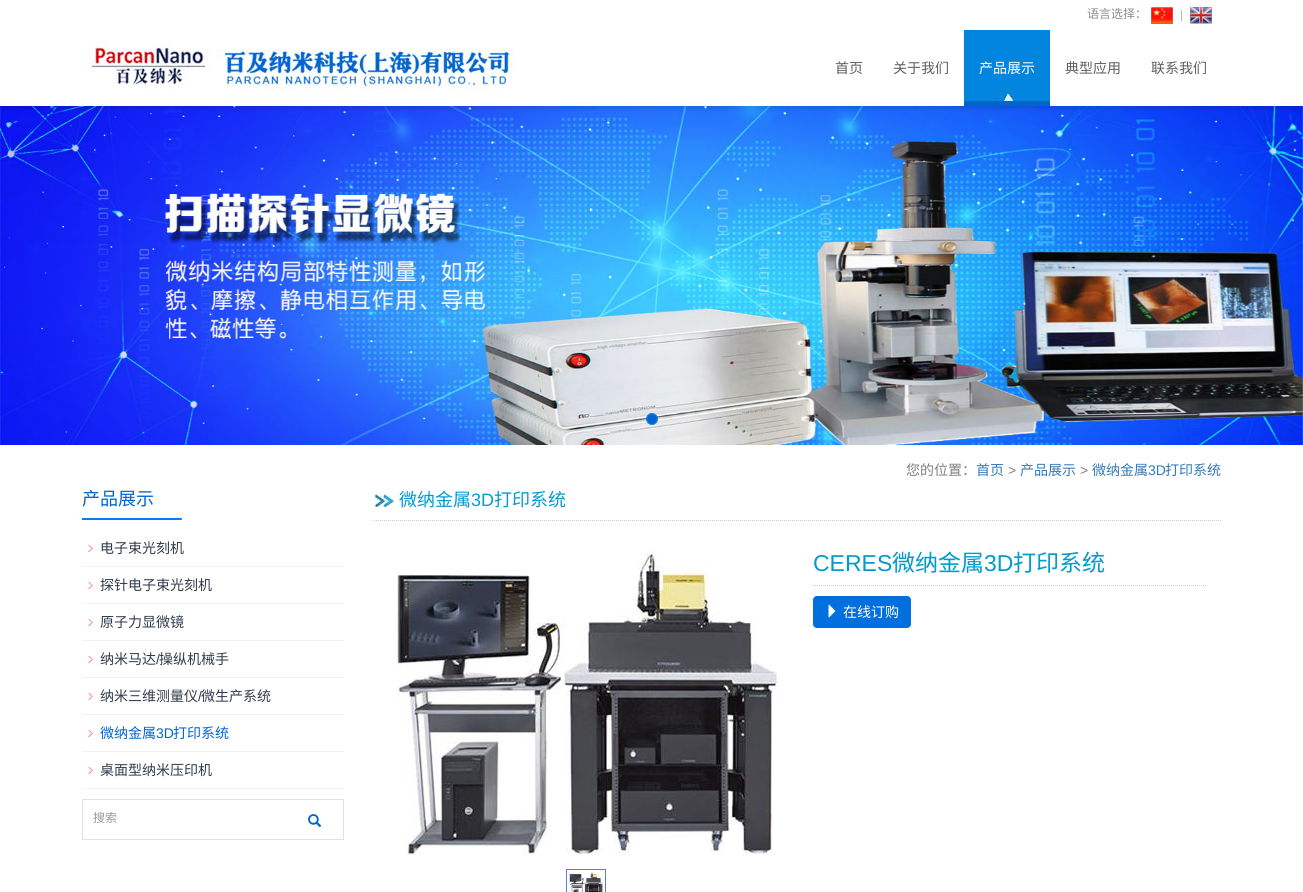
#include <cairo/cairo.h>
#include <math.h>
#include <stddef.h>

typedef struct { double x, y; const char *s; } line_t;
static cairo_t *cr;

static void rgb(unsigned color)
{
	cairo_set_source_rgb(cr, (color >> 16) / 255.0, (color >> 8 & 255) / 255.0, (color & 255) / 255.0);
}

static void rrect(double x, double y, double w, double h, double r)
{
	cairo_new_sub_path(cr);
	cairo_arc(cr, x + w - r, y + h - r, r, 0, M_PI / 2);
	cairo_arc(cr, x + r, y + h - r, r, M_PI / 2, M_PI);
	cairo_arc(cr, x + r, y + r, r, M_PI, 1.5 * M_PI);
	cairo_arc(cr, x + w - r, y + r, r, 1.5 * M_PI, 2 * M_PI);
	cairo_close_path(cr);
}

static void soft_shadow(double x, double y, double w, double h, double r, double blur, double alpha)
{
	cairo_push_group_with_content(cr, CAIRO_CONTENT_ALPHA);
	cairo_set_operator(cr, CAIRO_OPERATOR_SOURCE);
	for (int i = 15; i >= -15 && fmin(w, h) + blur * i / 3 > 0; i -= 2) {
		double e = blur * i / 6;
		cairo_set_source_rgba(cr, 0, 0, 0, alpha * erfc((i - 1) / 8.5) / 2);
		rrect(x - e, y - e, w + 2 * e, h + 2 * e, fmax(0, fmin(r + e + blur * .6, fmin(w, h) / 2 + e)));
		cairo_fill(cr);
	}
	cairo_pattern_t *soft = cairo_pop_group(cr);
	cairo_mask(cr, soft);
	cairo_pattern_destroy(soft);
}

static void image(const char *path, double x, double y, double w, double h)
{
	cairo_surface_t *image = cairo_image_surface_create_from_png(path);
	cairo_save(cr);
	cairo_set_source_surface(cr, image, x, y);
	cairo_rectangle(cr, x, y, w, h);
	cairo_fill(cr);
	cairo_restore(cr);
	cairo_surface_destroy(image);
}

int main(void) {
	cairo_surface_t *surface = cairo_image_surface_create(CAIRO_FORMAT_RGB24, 1303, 892);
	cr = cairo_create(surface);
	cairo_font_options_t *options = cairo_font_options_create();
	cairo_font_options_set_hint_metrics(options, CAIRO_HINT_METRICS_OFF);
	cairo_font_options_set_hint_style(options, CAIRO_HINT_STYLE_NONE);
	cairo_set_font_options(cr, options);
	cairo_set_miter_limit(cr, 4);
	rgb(0xffffff);
	cairo_paint(cr);
	image("img/1.png", 1151, 7, 22, 17);
	rgb(0xbbbbbb);
	cairo_rectangle(cr, 1181, 10, 1, 11);
	cairo_fill(cr);
	image("img/2.png", 1190, 7, 22, 17);
	image("img/5.png", 0, 106, 1303, 339);
	cairo_save(cr);
	cairo_rectangle(cr, 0, 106, 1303, 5);
	cairo_clip(cr);
	rgb(0x000000);
	soft_shadow(0, 33, 1303, 76, 0, 2, 0.1);
	cairo_restore(cr);
	image("img/3.png", 90, 41, 424, 48);
	image("img/4.png", 964, 30, 86, 76);
	rgb(0x0264cf);
	cairo_arc(cr, 652, 419, 5.5, 0, 2 * M_PI);
	cairo_fill_preserve(cr);
	rgb(0x1288e9);
	cairo_set_line_width(cr, 1);
	cairo_stroke(cr);
	image("img/6.png", 82, 518, 100, 2);
	image("img/7.png", 88, 545, 5, 7);
	rgb(0xf2f2f2);
	cairo_rectangle(cr, 82, 566, 262, 1);
	cairo_fill(cr);
	image("img/7.png", 88, 582, 5, 7);
	cairo_rectangle(cr, 82, 603, 262, 1);
	cairo_fill(cr);
	image("img/7.png", 88, 619, 5, 7);
	cairo_rectangle(cr, 82, 640, 262, 1);
	cairo_fill(cr);
	image("img/7.png", 88, 656, 5, 7);
	cairo_rectangle(cr, 82, 677, 262, 1);
	cairo_fill(cr);
	image("img/7.png", 88, 693, 5, 7);
	cairo_rectangle(cr, 82, 714, 262, 1);
	cairo_fill(cr);
	image("img/7.png", 88, 730, 5, 7);
	cairo_rectangle(cr, 82, 751, 262, 1);
	cairo_fill(cr);
	image("img/7.png", 88, 767, 5, 7);
	cairo_rectangle(cr, 82, 788, 262, 1);
	cairo_fill(cr);
	cairo_rectangle(cr, 82.5, 799.5, 261, 40);
	rgb(0xdfe1e3);
	cairo_stroke(cr);
	image("img/8.png", 308, 814, 14, 13);
	image("img/9.png", 374, 494, 20, 13);
	cairo_new_path(cr);
	cairo_move_to(cr, 374, 520.5);
	cairo_line_to(cr, 1222, 520.5);
	rgb(0xcccccc);
	cairo_set_dash(cr, (double[]){1, 1}, 2, 0);
	cairo_stroke(cr);
	image("img/10.png", 397, 551, 382, 304);
	cairo_rectangle(cr, 566.5, 869.5, 39, 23);
	rgb(0x5280dd);
	cairo_set_dash(cr, NULL, 0, 0);
	cairo_stroke(cr);
	image("img/11.png", 569, 872, 34, 20);
	cairo_new_path(cr);
	cairo_move_to(cr, 813, 585.5);
	cairo_line_to(cr, 1207, 585.5);
	rgb(0xcccccc);
	cairo_set_dash(cr, (double[]){1, 1}, 2, 0);
	cairo_stroke(cr);
	rgb(0x026fde);
	rrect(813, 596, 98, 32, 4);
	cairo_fill(cr);
	image("img/12.png", 828, 604, 8, 14);
	cairo_select_font_face(cr, "Noto Sans CJK SC", CAIRO_FONT_SLANT_NORMAL, CAIRO_FONT_WEIGHT_NORMAL);
	cairo_set_font_size(cr, 12);
	rgb(0x8b8c8b);
	cairo_move_to(cr, 1087, 18);
	cairo_show_text(cr, "语言选择：");
	cairo_set_font_size(cr, 14);
	rgb(0x5e5e5e);
	cairo_move_to(cr, 835, 73);
	cairo_show_text(cr, "首页");
	cairo_move_to(cr, 893, 73);
	cairo_show_text(cr, "关于我们");
	rgb(0xffffff);
	cairo_move_to(cr, 979, 73);
	cairo_show_text(cr, "产品展示");
	rgb(0x5e5e5e);
	cairo_move_to(cr, 1065, 73);
	cairo_show_text(cr, "典型应用");
	cairo_move_to(cr, 1151, 73);
	cairo_show_text(cr, "联系我们");
	cairo_set_font_size(cr, 18);
	rgb(0x0264cf);
	cairo_move_to(cr, 82, 505);
	cairo_show_text(cr, "产品展示");
	cairo_set_font_size(cr, 14);
	rgb(0x303c4b);
	{
		static const line_t items[] = {
			{100, 553, "电子束光刻机"},
			{100, 590, "探针电子束光刻机"},
			{100, 627, "原子力显微镜"},
			{100, 664, "纳米马达"},
		};
		for (size_t i = 0; i < sizeof items / sizeof *items; i++) {
			cairo_move_to(cr, items[i].x, items[i].y);
			cairo_show_text(cr, items[i].s);
		}
	}
	cairo_select_font_face(cr, "Liberation Sans", CAIRO_FONT_SLANT_NORMAL, CAIRO_FONT_WEIGHT_NORMAL);
	cairo_move_to(cr, 156, 664);
	cairo_show_text(cr, "/");
	cairo_select_font_face(cr, "Noto Sans CJK SC", CAIRO_FONT_SLANT_NORMAL, CAIRO_FONT_WEIGHT_NORMAL);
	cairo_move_to(cr, 159, 664);
	cairo_show_text(cr, "操纵机械手");
	cairo_move_to(cr, 100, 701);
	cairo_show_text(cr, "纳米三维测量仪");
	cairo_select_font_face(cr, "Liberation Sans", CAIRO_FONT_SLANT_NORMAL, CAIRO_FONT_WEIGHT_NORMAL);
	cairo_move_to(cr, 198, 701);
	cairo_show_text(cr, "/");
	cairo_select_font_face(cr, "Noto Sans CJK SC", CAIRO_FONT_SLANT_NORMAL, CAIRO_FONT_WEIGHT_NORMAL);
	cairo_move_to(cr, 201, 701);
	cairo_show_text(cr, "微生产系统");
	rgb(0x0264cf);
	cairo_move_to(cr, 100, 738);
	cairo_show_text(cr, "微纳金属");
	cairo_select_font_face(cr, "Liberation Sans", CAIRO_FONT_SLANT_NORMAL, CAIRO_FONT_WEIGHT_NORMAL);
	cairo_move_to(cr, 156, 738);
	cairo_show_text(cr, "3D");
	cairo_select_font_face(cr, "Noto Sans CJK SC", CAIRO_FONT_SLANT_NORMAL, CAIRO_FONT_WEIGHT_NORMAL);
	cairo_move_to(cr, 173, 738);
	cairo_show_text(cr, "打印系统");
	rgb(0x303c4b);
	cairo_move_to(cr, 100, 775);
	cairo_show_text(cr, "桌面型纳米压印机");
	cairo_set_font_size(cr, 12);
	rgb(0x999999);
	cairo_move_to(cr, 93, 822);
	cairo_show_text(cr, "搜索");
	cairo_set_font_size(cr, 14);
	rgb(0x7f7f80);
	cairo_move_to(cr, 906, 475);
	cairo_show_text(cr, "您的位置：");
	rgb(0x337ab7);
	cairo_move_to(cr, 976, 475);
	cairo_show_text(cr, "首页");
	cairo_select_font_face(cr, "Liberation Sans", CAIRO_FONT_SLANT_NORMAL, CAIRO_FONT_WEIGHT_NORMAL);
	rgb(0x7f7f80);
	cairo_move_to(cr, 1008, 475);
	cairo_show_text(cr, ">");
	cairo_select_font_face(cr, "Noto Sans CJK SC", CAIRO_FONT_SLANT_NORMAL, CAIRO_FONT_WEIGHT_NORMAL);
	rgb(0x337ab7);
	cairo_move_to(cr, 1020, 475);
	cairo_show_text(cr, "产品展示");
	cairo_select_font_face(cr, "Liberation Sans", CAIRO_FONT_SLANT_NORMAL, CAIRO_FONT_WEIGHT_NORMAL);
	rgb(0x7f7f80);
	cairo_move_to(cr, 1080, 475);
	cairo_show_text(cr, ">");
	cairo_select_font_face(cr, "Noto Sans CJK SC", CAIRO_FONT_SLANT_NORMAL, CAIRO_FONT_WEIGHT_NORMAL);
	rgb(0x337ab7);
	cairo_move_to(cr, 1092, 475);
	cairo_show_text(cr, "微纳金属");
	cairo_select_font_face(cr, "Liberation Sans", CAIRO_FONT_SLANT_NORMAL, CAIRO_FONT_WEIGHT_NORMAL);
	cairo_move_to(cr, 1148, 475);
	cairo_show_text(cr, "3D");
	cairo_select_font_face(cr, "Noto Sans CJK SC", CAIRO_FONT_SLANT_NORMAL, CAIRO_FONT_WEIGHT_NORMAL);
	cairo_move_to(cr, 1165, 475);
	cairo_show_text(cr, "打印系统");
	cairo_set_font_size(cr, 18);
	rgb(0x029bcd);
	cairo_move_to(cr, 399, 506);
	cairo_show_text(cr, "微纳金属");
	cairo_select_font_face(cr, "Liberation Sans", CAIRO_FONT_SLANT_NORMAL, CAIRO_FONT_WEIGHT_NORMAL);
	cairo_move_to(cr, 471, 506);
	cairo_show_text(cr, "3D");
	cairo_select_font_face(cr, "Noto Sans CJK SC", CAIRO_FONT_SLANT_NORMAL, CAIRO_FONT_WEIGHT_NORMAL);
	cairo_move_to(cr, 494, 506);
	cairo_show_text(cr, "打印系统");
	cairo_select_font_face(cr, "Liberation Sans", CAIRO_FONT_SLANT_NORMAL, CAIRO_FONT_WEIGHT_NORMAL);
	cairo_set_font_size(cr, 23);
	cairo_move_to(cr, 813, 571);
	cairo_show_text(cr, "CERES");
	cairo_select_font_face(cr, "Noto Sans CJK SC", CAIRO_FONT_SLANT_NORMAL, CAIRO_FONT_WEIGHT_NORMAL);
	cairo_move_to(cr, 892, 571);
	cairo_show_text(cr, "微纳金属");
	cairo_select_font_face(cr, "Liberation Sans", CAIRO_FONT_SLANT_NORMAL, CAIRO_FONT_WEIGHT_NORMAL);
	cairo_move_to(cr, 984, 571);
	cairo_show_text(cr, "3D");
	cairo_select_font_face(cr, "Noto Sans CJK SC", CAIRO_FONT_SLANT_NORMAL, CAIRO_FONT_WEIGHT_NORMAL);
	cairo_move_to(cr, 1013, 571);
	cairo_show_text(cr, "打印系统");
	cairo_set_font_size(cr, 14);
	rgb(0xffffff);
	cairo_move_to(cr, 843, 617);
	cairo_show_text(cr, "在线订购");
	cairo_surface_write_to_png(surface, "page.png");
	cairo_font_options_destroy(options);
	cairo_destroy(cr);
	cairo_surface_destroy(surface);
	return 0;
}
